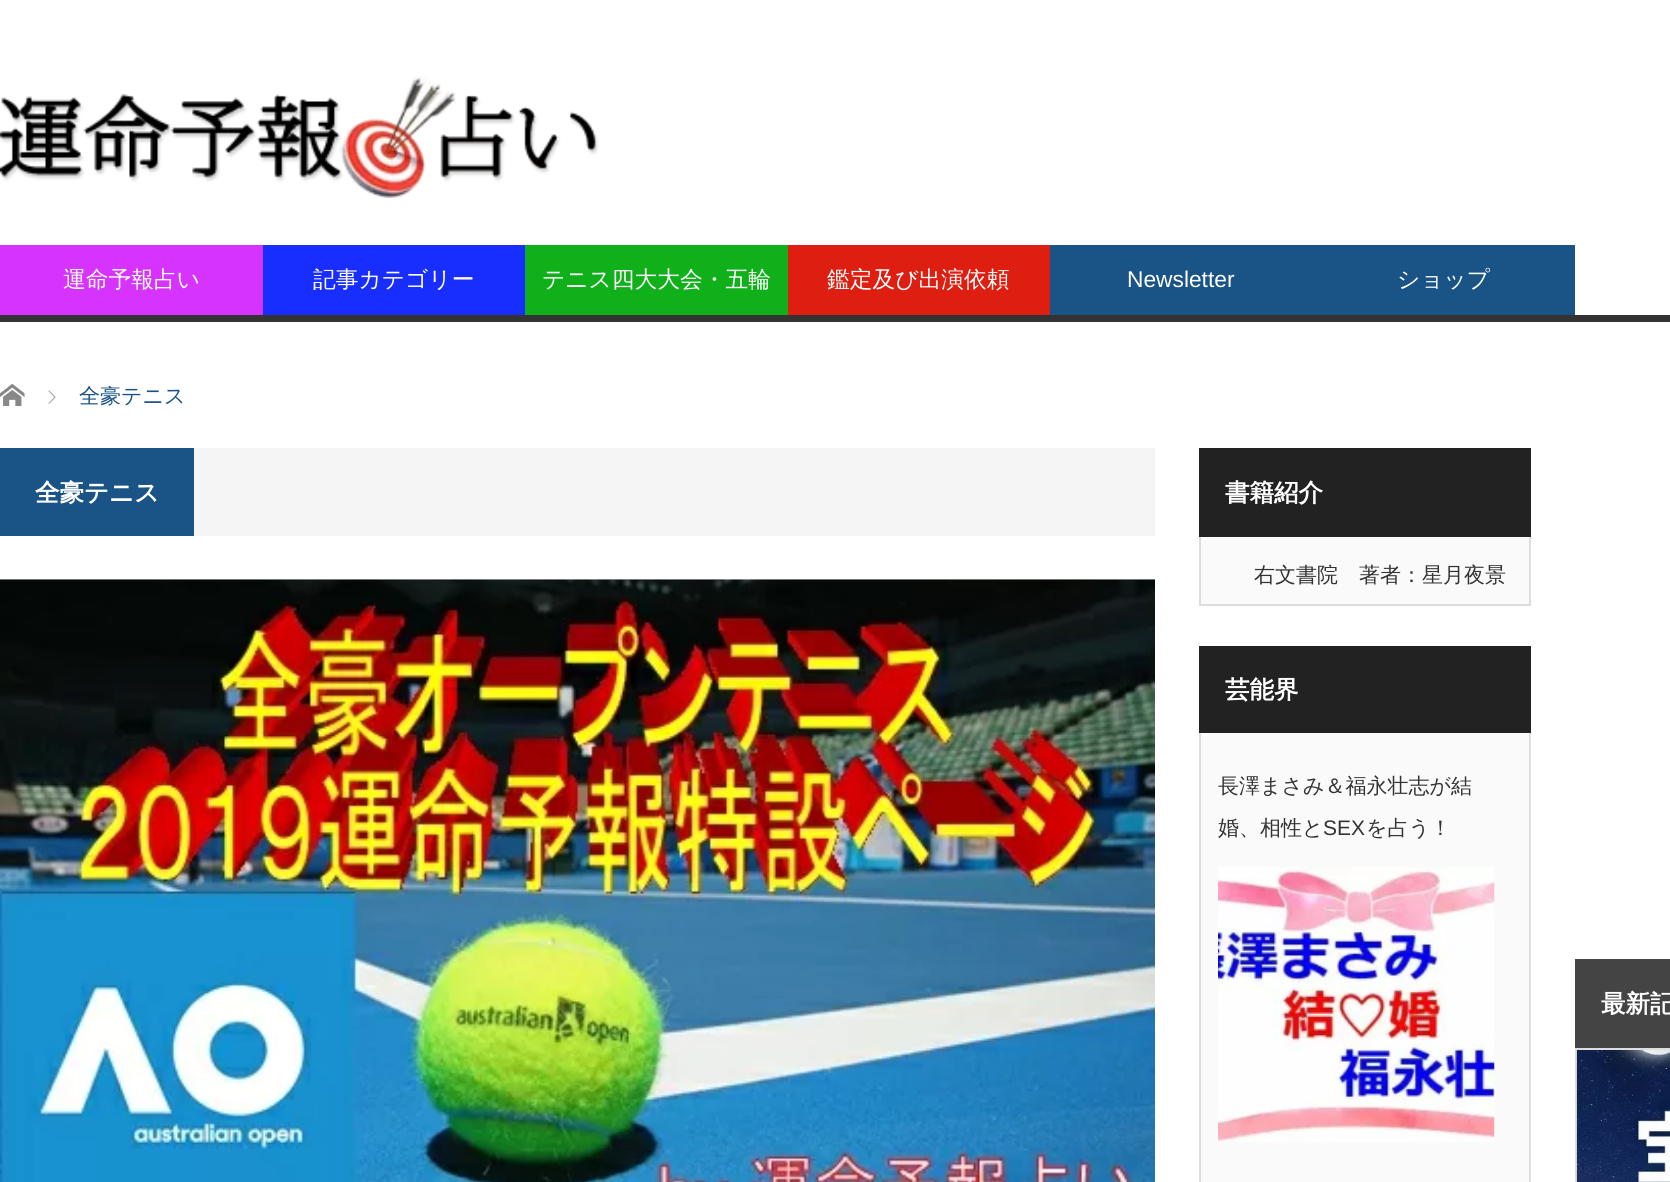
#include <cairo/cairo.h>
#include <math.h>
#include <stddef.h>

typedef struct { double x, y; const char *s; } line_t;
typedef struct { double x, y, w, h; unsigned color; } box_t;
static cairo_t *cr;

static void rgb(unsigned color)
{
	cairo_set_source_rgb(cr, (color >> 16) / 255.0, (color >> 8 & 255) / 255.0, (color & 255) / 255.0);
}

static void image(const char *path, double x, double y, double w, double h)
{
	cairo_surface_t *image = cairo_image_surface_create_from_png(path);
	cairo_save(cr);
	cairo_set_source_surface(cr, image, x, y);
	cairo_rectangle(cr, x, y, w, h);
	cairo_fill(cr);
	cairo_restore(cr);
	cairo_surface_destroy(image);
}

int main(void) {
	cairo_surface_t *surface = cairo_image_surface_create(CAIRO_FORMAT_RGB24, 1670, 1182);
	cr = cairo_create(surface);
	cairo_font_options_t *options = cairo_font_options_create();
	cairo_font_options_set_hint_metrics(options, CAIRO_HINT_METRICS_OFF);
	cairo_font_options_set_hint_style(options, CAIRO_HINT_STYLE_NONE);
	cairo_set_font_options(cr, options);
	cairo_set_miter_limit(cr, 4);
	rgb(0xffffff);
	cairo_paint(cr);
	rgb(0x333333);
	cairo_rectangle(cr, 0, 315, 1670, 7);
	cairo_fill(cr);
	image("img/1.png", 0, 76, 599, 122);
	{
		static const box_t items[] = {
			{0, 245, 263, 70, 0xd633ff},
			{263, 245, 262, 70, 0x172eff},
			{525, 245, 263, 70, 0x10b01a},
			{788, 245, 262, 70, 0xde1e10},
			{1050, 245, 525, 70, 0x1a5487},
		};
		for (size_t i = 0; i < sizeof items / sizeof *items; i++) {
			rgb(items[i].color);
			cairo_rectangle(cr, items[i].x, items[i].y, items[i].w, items[i].h);
			cairo_fill(cr);
		}
	}
	image("img/2.png", 0, 383, 25, 23);
	image("img/3.png", 48, 390, 8, 14);
	rgb(0xf5f5f5);
	cairo_rectangle(cr, 194, 448, 961, 88);
	cairo_fill(cr);
	rgb(0x1a5487);
	cairo_rectangle(cr, 0, 448, 194, 88);
	cairo_fill(cr);
	image("img/4.png", 0, 579, 1155, 603);
	rgb(0xfafafa);
	cairo_rectangle(cr, 1201, 537, 328, 67);
	cairo_fill(cr);
	cairo_rectangle(cr, 1200, 449, 330, 156);
	rgb(0xdddddd);
	cairo_stroke(cr);
	rgb(0x222222);
	cairo_rectangle(cr, 1199, 448, 332, 89);
	cairo_fill(cr);
	rgb(0xfafafa);
	cairo_rectangle(cr, 1201, 733, 328, 449);
	cairo_fill(cr);
	cairo_rectangle(cr, 1200, 647, 330, 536);
	rgb(0xdddddd);
	cairo_stroke(cr);
	rgb(0x222222);
	cairo_rectangle(cr, 1199, 646, 332, 87);
	cairo_fill(cr);
	image("img/5.png", 1218, 867, 277, 275);
	rgb(0x444444);
	cairo_rectangle(cr, 1575, 959, 95, 89);
	cairo_fill(cr);
	cairo_rectangle(cr, 1576, 1049, 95, 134);
	rgb(0xdddddd);
	cairo_stroke(cr);
	image("img/6.png", 1576, 1050, 94, 132);
	cairo_select_font_face(cr, "WenQuanYi Zen Hei Medium", CAIRO_FONT_SLANT_NORMAL, CAIRO_FONT_WEIGHT_NORMAL);
	cairo_set_font_size(cr, 22.75);
	rgb(0xffffff);
	{
		static const line_t items[] = {
			{63, 287, "運命予報占い"},
			{313, 287, "記事カテゴリー"},
			{542, 287, "テニス四大大会・五輪"},
			{827, 287, "鑑定及び出演依頼"},
		};
		for (size_t i = 0; i < sizeof items / sizeof *items; i++) {
			cairo_move_to(cr, items[i].x, items[i].y);
			cairo_show_text(cr, items[i].s);
		}
	}
	cairo_select_font_face(cr, "Liberation Sans", CAIRO_FONT_SLANT_NORMAL, CAIRO_FONT_WEIGHT_NORMAL);
	cairo_move_to(cr, 1127, 287);
	cairo_show_text(cr, "Newsletter");
	cairo_select_font_face(cr, "WenQuanYi Zen Hei Medium", CAIRO_FONT_SLANT_NORMAL, CAIRO_FONT_WEIGHT_NORMAL);
	cairo_move_to(cr, 1397, 287);
	cairo_show_text(cr, "ショップ");
	cairo_set_font_size(cr, 21);
	rgb(0x1a5487);
	cairo_move_to(cr, 79, 403);
	cairo_show_text(cr, "全豪テニス");
	cairo_select_font_face(cr, "WenQuanYi Zen Hei", CAIRO_FONT_SLANT_NORMAL, CAIRO_FONT_WEIGHT_BOLD);
	cairo_set_font_size(cr, 24.5);
	rgb(0xffffff);
	cairo_move_to(cr, 35, 501);
	cairo_show_text(cr, "全豪テニス");
	cairo_move_to(cr, 1225, 501);
	cairo_show_text(cr, "書籍紹介");
	cairo_select_font_face(cr, "WenQuanYi Zen Hei Medium", CAIRO_FONT_SLANT_NORMAL, CAIRO_FONT_WEIGHT_NORMAL);
	cairo_set_font_size(cr, 21);
	rgb(0x333333);
	cairo_move_to(cr, 1254, 582);
	cairo_show_text(cr, "右文書院　著者：星月夜景");
	cairo_select_font_face(cr, "WenQuanYi Zen Hei", CAIRO_FONT_SLANT_NORMAL, CAIRO_FONT_WEIGHT_BOLD);
	cairo_set_font_size(cr, 24.5);
	rgb(0xffffff);
	cairo_move_to(cr, 1225, 698);
	cairo_show_text(cr, "芸能界");
	cairo_select_font_face(cr, "WenQuanYi Zen Hei Medium", CAIRO_FONT_SLANT_NORMAL, CAIRO_FONT_WEIGHT_NORMAL);
	cairo_set_font_size(cr, 21);
	rgb(0x333333);
	cairo_move_to(cr, 1218, 793);
	cairo_show_text(cr, "長澤まさみ＆福永壮志が結");
	cairo_move_to(cr, 1218, 835);
	cairo_show_text(cr, "婚、相性と");
	cairo_select_font_face(cr, "Liberation Sans", CAIRO_FONT_SLANT_NORMAL, CAIRO_FONT_WEIGHT_NORMAL);
	cairo_move_to(cr, 1323, 835);
	cairo_show_text(cr, "SEX");
	cairo_select_font_face(cr, "WenQuanYi Zen Hei Medium", CAIRO_FONT_SLANT_NORMAL, CAIRO_FONT_WEIGHT_NORMAL);
	cairo_move_to(cr, 1366, 835);
	cairo_show_text(cr, "を占う！");
	cairo_select_font_face(cr, "WenQuanYi Zen Hei", CAIRO_FONT_SLANT_NORMAL, CAIRO_FONT_WEIGHT_BOLD);
	cairo_set_font_size(cr, 24.5);
	rgb(0xffffff);
	cairo_move_to(cr, 1601, 1012);
	cairo_show_text(cr, "最新記");
	cairo_surface_write_to_png(surface, "page.png");
	cairo_font_options_destroy(options);
	cairo_destroy(cr);
	cairo_surface_destroy(surface);
	return 0;
}
